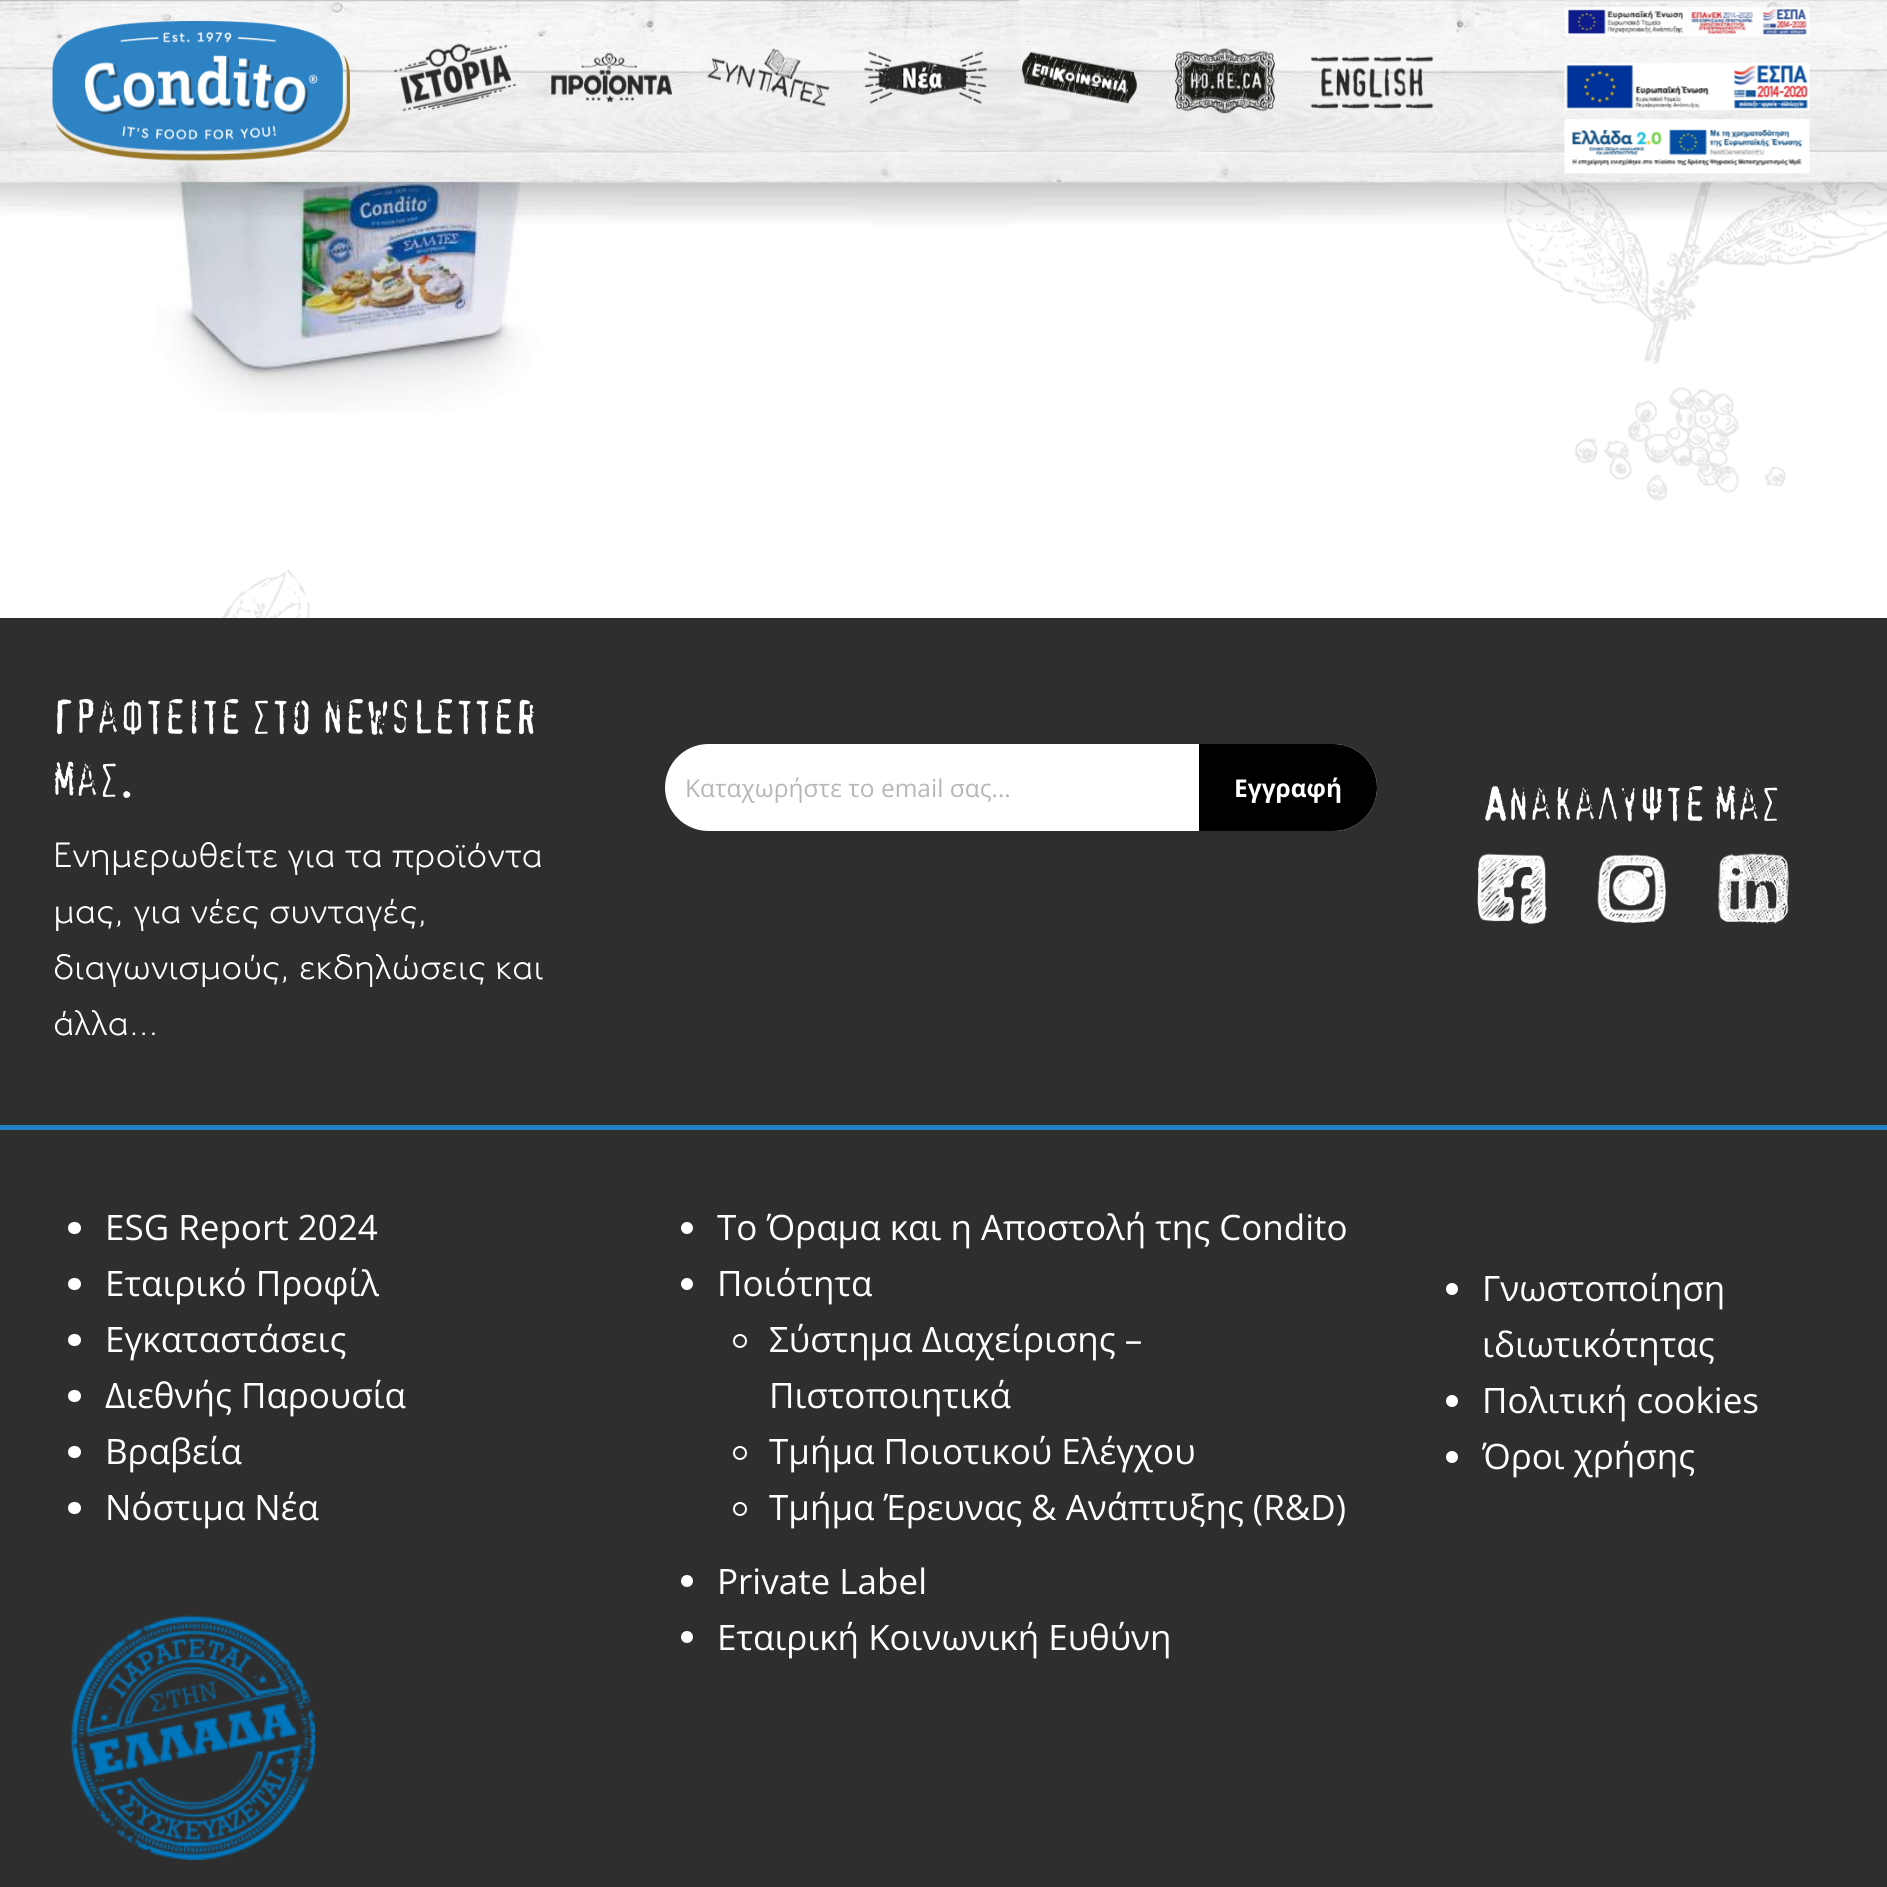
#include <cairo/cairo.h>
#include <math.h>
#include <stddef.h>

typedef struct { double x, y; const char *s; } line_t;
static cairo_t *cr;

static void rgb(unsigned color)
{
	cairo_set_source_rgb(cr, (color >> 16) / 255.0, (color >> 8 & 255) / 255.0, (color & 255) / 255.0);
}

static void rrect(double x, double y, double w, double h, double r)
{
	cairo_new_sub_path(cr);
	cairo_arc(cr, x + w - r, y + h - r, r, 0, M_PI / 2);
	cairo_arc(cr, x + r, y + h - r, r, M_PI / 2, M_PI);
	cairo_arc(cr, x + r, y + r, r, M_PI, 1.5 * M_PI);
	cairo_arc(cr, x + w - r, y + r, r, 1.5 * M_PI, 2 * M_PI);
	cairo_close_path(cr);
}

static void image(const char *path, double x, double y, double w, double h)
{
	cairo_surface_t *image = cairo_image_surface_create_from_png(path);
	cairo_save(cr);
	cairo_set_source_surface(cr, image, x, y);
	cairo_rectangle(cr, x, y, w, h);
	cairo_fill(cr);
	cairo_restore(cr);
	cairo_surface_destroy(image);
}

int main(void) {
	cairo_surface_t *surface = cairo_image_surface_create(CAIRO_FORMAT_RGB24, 1887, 1887);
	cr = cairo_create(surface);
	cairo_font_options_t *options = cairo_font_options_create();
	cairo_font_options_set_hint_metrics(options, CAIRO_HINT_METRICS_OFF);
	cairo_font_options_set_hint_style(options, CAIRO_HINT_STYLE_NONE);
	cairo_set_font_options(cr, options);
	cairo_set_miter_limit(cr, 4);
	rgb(0xffffff);
	cairo_paint(cr);
	image("img/1.png", 221, 182, 1666, 436);
	image("img/2.png", 0, 0, 1887, 182);
	image("img/3.png", 52, 21, 298, 140);
	image("img/4.png", 393, 43, 124, 69);
	image("img/5.png", 551, 52, 121, 51);
	image("img/6.png", 707, 48, 123, 59);
	image("img/7.png", 864, 51, 123, 53);
	image("img/8.png", 1022, 51, 116, 53);
	image("img/9.png", 1174, 48, 101, 66);
	image("img/10.png", 1310, 56, 124, 53);
	image("img/11.png", 1564, 6, 246, 31);
	image("img/12.png", 1564, 63, 246, 48);
	image("img/13.png", 1564, 118, 246, 56);
	image("img/15.png", 90, 182, 454, 231);
	image("img/14.png", 0, 181, 1887, 44);
	rgb(0x2e2e2e);
	cairo_rectangle(cr, 0, 618, 1887, 507);
	cairo_fill(cr);
	rgb(0xffffff);
	rrect(666, 745, 710, 85, 42.5);
	cairo_fill_preserve(cr);
	cairo_stroke(cr);
	rgb(0x000000);
	cairo_new_path(cr);
	cairo_move_to(cr, 1199, 744);
	cairo_line_to(cr, 1333.5, 744);
	cairo_curve_to(cr, 1357.5, 744, 1377, 763.5, 1377, 787.5);
	cairo_curve_to(cr, 1377, 811.5, 1357.5, 831, 1333.5, 831);
	cairo_line_to(cr, 1199, 831);
	cairo_close_path(cr);
	cairo_fill(cr);
	image("img/16.png", 1477, 853, 70, 71);
	image("img/17.png", 1597, 854, 69, 69);
	image("img/18.png", 1718, 853, 71, 71);
	rgb(0x2e2e2e);
	cairo_rectangle(cr, 0, 1130, 1887, 757);
	cairo_fill(cr);
	rgb(0x2280c3);
	cairo_rectangle(cr, 0, 1125, 1887, 5);
	cairo_fill(cr);
	rgb(0xffffff);
	rrect(68, 1222, 13, 12, 6);
	cairo_fill(cr);
	rrect(68, 1278, 13, 12, 6);
	cairo_fill(cr);
	rrect(68, 1334, 13, 12, 6);
	cairo_fill(cr);
	rrect(68, 1390, 13, 12, 6);
	cairo_fill(cr);
	rrect(68, 1446, 13, 12, 6);
	cairo_fill(cr);
	rrect(68, 1502, 13, 12, 6);
	cairo_fill(cr);
	image("img/19.png", 70, 1615, 245, 245);
	cairo_arc(cr, 687, 1228, 6, 0, 2 * M_PI);
	cairo_fill(cr);
	cairo_arc(cr, 687, 1284, 6, 0, 2 * M_PI);
	cairo_fill(cr);
	cairo_arc(cr, 740, 1341, 6, 0, 2 * M_PI);
	cairo_stroke(cr);
	cairo_arc(cr, 740, 1453, 6, 0, 2 * M_PI);
	cairo_stroke(cr);
	cairo_arc(cr, 740, 1509, 6, 0, 2 * M_PI);
	cairo_stroke(cr);
	cairo_arc(cr, 687, 1581, 6, 0, 2 * M_PI);
	cairo_fill(cr);
	cairo_arc(cr, 687, 1637, 6, 0, 2 * M_PI);
	cairo_fill(cr);
	cairo_arc(cr, 1452, 1289, 6, 0, 2 * M_PI);
	cairo_fill(cr);
	cairo_arc(cr, 1452, 1401, 6, 0, 2 * M_PI);
	cairo_fill(cr);
	cairo_arc(cr, 1452, 1457, 6, 0, 2 * M_PI);
	cairo_fill(cr);
	cairo_select_font_face(cr, "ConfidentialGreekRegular", CAIRO_FONT_SLANT_NORMAL, CAIRO_FONT_WEIGHT_NORMAL);
	cairo_set_font_size(cr, 45.5);
	cairo_move_to(cr, 53, 734);
	cairo_show_text(cr, "Γραφτείτε στο newsletter");
	cairo_move_to(cr, 53, 797);
	cairo_show_text(cr, "μας.");
	cairo_select_font_face(cr, "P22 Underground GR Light", CAIRO_FONT_SLANT_NORMAL, CAIRO_FONT_WEIGHT_NORMAL);
	cairo_set_font_size(cr, 35);
	{
		static const line_t items[] = {
			{53, 867, "Ενημερωθείτε για τα προϊόντα"},
			{53, 923, "μας, για νέες συνταγές,"},
			{53, 979, "διαγωνισμούς, εκδηλώσεις και"},
			{53, 1035, "άλλα..."},
		};
		for (size_t i = 0; i < sizeof items / sizeof *items; i++) {
			cairo_move_to(cr, items[i].x, items[i].y);
			cairo_show_text(cr, items[i].s);
		}
	}
	cairo_select_font_face(cr, "Open Sans", CAIRO_FONT_SLANT_NORMAL, CAIRO_FONT_WEIGHT_NORMAL);
	cairo_set_font_size(cr, 24.5);
	rgb(0xb7b7b7);
	cairo_move_to(cr, 685, 797);
	cairo_show_text(cr, "Καταχωρήστε το email σας...");
	cairo_select_font_face(cr, "Open Sans", CAIRO_FONT_SLANT_NORMAL, CAIRO_FONT_WEIGHT_BOLD);
	rgb(0xffffff);
	cairo_move_to(cr, 1234, 797);
	cairo_show_text(cr, "Εγγραφή");
	cairo_select_font_face(cr, "ConfidentialGreekRegular", CAIRO_FONT_SLANT_NORMAL, CAIRO_FONT_WEIGHT_NORMAL);
	cairo_set_font_size(cr, 45.5);
	cairo_move_to(cr, 1484, 821);
	cairo_show_text(cr, "Ανακαλύψτε μας");
	cairo_select_font_face(cr, "Open Sans", CAIRO_FONT_SLANT_NORMAL, CAIRO_FONT_WEIGHT_NORMAL);
	cairo_set_font_size(cr, 35);
	{
		static const line_t items[] = {
			{105, 1240, "ESG Report 2024"},
			{105, 1296, "Εταιρικό Προφίλ"},
			{105, 1352, "Εγκαταστάσεις"},
			{105, 1408, "Διεθνής Παρουσία"},
			{105, 1464, "Βραβεία"},
			{105, 1520, "Νόστιμα Νέα"},
			{717, 1240, "Το Όραμα και η Αποστολή της Condito"},
			{717, 1296, "Ποιότητα"},
			{769, 1352, "Σύστημα Διαχείρισης –"},
			{769, 1408, "Πιστοποιητικά"},
			{769, 1464, "Τμήμα Ποιοτικού Ελέγχου"},
			{769, 1520, "Τμήμα Έρευνας & Ανάπτυξης (R&D)"},
			{717, 1594, "Private Label"},
			{717, 1650, "Εταιρική Κοινωνική Ευθύνη"},
			{1482, 1301, "Γνωστοποίηση"},
			{1482, 1357, "ιδιωτικότητας"},
			{1482, 1413, "Πολιτική cookies"},
			{1482, 1469, "Όροι χρήσης"},
		};
		for (size_t i = 0; i < sizeof items / sizeof *items; i++) {
			cairo_move_to(cr, items[i].x, items[i].y);
			cairo_show_text(cr, items[i].s);
		}
	}
	cairo_surface_write_to_png(surface, "page.png");
	cairo_font_options_destroy(options);
	cairo_destroy(cr);
	cairo_surface_destroy(surface);
	return 0;
}
